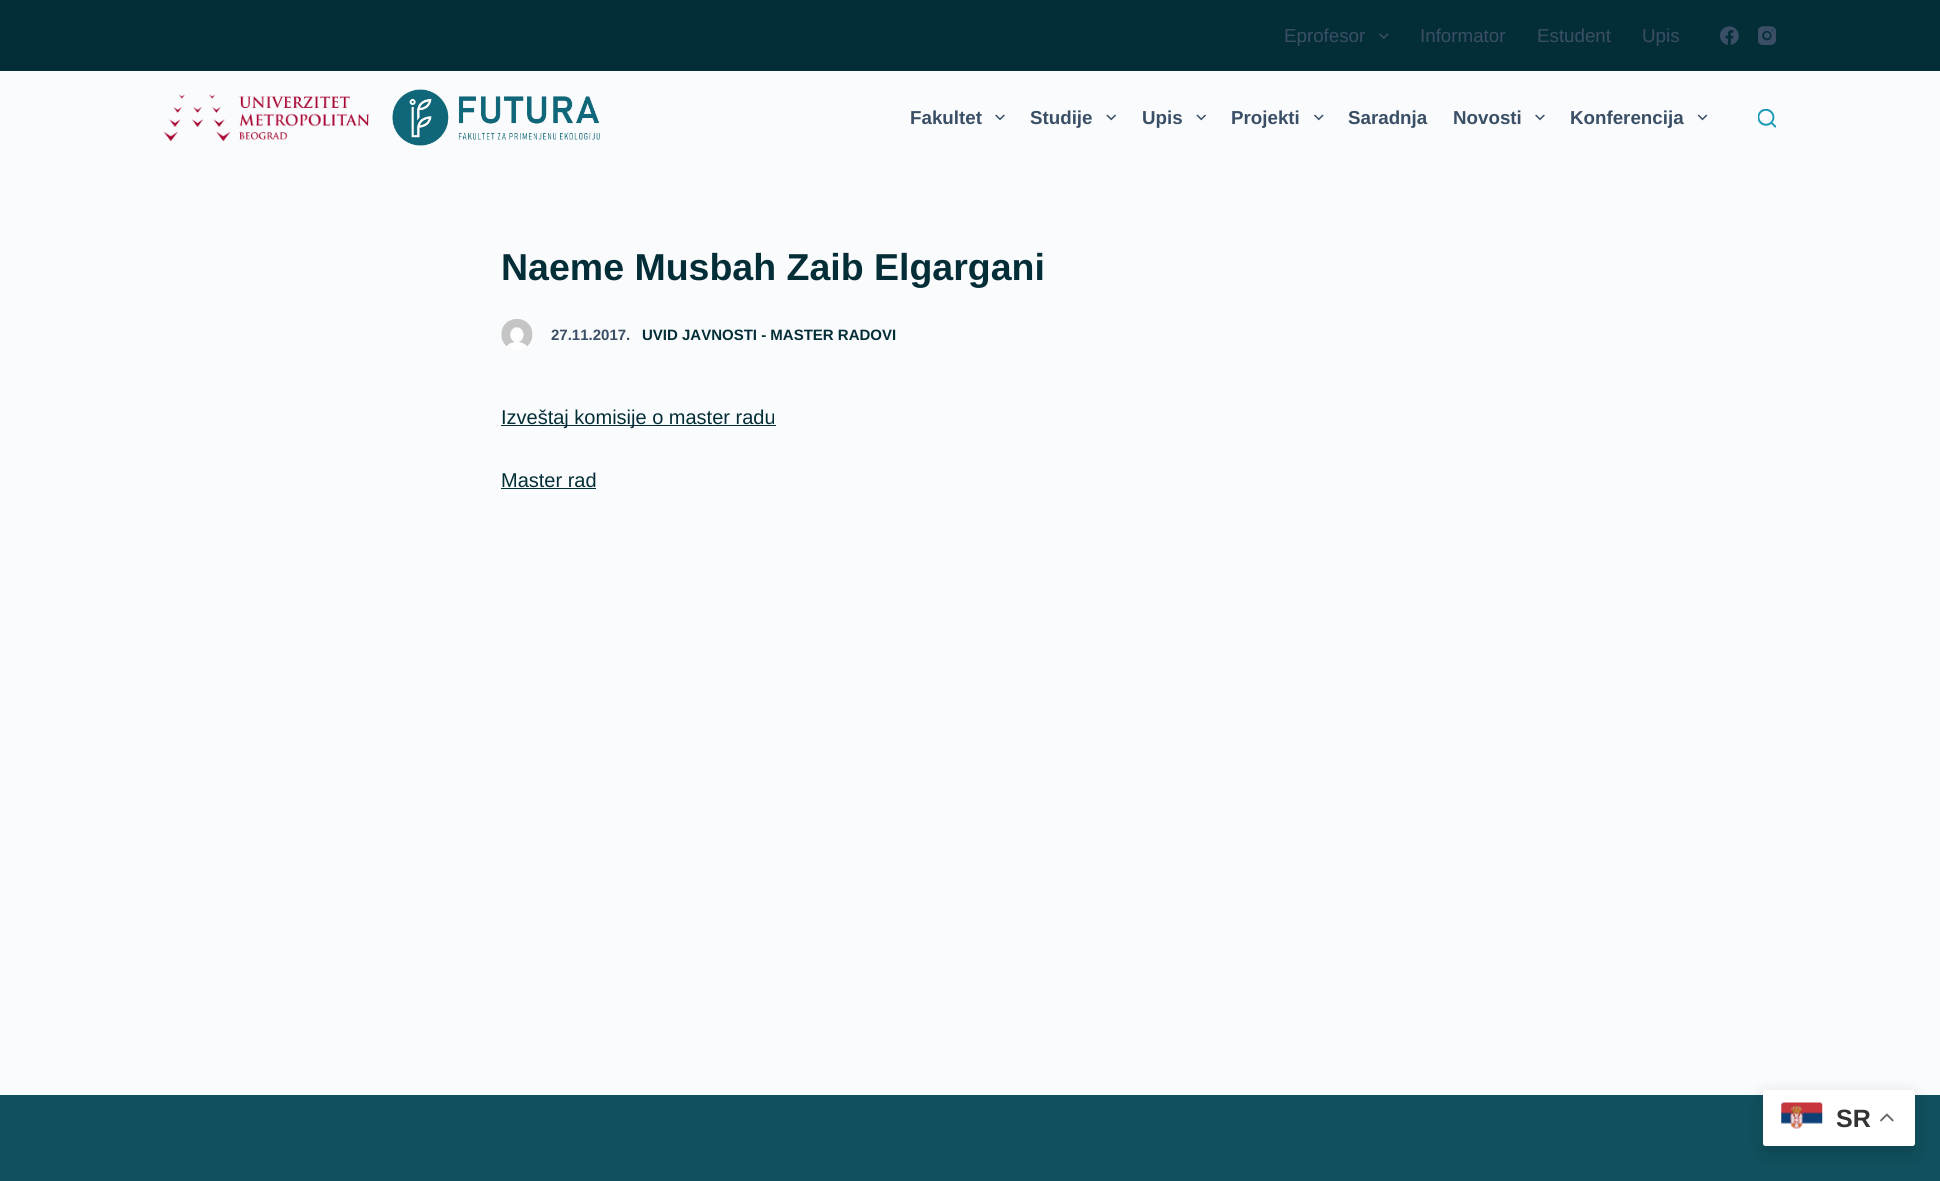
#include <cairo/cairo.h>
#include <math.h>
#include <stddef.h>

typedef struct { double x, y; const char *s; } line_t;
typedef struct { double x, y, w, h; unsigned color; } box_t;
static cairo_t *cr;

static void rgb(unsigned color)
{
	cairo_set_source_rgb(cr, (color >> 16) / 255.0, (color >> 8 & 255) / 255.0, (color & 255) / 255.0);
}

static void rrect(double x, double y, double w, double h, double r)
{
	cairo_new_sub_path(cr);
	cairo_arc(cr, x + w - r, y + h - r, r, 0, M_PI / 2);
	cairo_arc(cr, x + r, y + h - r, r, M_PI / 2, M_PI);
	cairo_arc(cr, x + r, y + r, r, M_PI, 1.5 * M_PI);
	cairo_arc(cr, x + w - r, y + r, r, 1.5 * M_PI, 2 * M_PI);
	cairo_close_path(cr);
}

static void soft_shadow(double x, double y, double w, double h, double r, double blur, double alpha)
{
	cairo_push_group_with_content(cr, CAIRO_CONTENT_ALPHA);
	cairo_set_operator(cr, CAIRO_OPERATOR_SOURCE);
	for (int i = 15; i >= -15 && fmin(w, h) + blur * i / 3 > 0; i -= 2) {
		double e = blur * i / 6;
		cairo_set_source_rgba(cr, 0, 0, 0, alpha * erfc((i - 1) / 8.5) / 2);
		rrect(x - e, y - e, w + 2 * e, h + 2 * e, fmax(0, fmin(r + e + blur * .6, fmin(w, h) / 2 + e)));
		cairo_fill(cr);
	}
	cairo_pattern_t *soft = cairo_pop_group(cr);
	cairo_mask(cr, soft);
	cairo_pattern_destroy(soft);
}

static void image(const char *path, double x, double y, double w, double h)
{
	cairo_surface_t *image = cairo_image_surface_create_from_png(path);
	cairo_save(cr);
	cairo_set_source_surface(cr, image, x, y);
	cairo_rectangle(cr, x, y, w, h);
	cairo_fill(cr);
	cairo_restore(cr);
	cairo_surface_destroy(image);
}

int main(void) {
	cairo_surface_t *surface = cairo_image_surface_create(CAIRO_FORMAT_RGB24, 1940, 1181);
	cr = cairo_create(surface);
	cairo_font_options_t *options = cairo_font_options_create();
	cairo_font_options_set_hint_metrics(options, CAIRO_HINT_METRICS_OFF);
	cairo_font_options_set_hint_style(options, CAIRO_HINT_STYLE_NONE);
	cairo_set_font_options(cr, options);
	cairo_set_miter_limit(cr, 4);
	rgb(0xfafbfc);
	cairo_paint(cr);
	rgb(0x042e37);
	cairo_rectangle(cr, 0, 0, 1940, 71);
	cairo_fill(cr);
	image("img/1.png", 1379, 33, 10, 6);
	image("img/2.png", 1720, 26, 19, 19);
	image("img/3.png", 1758, 26, 18, 19);
	image("img/4.png", 163, 94, 207, 48);
	image("img/5.png", 392, 89, 208, 57);
	image("img/6.png", 995, 114, 10, 7);
	image("img/7.png", 1106, 114, 10, 7);
	image("img/7.png", 1196, 114, 10, 7);
	image("img/8.png", 1314, 114, 10, 7);
	image("img/6.png", 1535, 114, 10, 7);
	image("img/9.png", 1698, 114, 10, 7);
	image("img/10.png", 1758, 109, 18, 19);
	image("img/11.png", 501, 319, 32, 31);
	{
		static const box_t items[] = {
			{501, 425, 275, 1, 0x042e37},
			{501, 488, 95, 1, 0x042e37},
			{0, 1095, 1940, 86, 0x11505e},
		};
		for (size_t i = 0; i < sizeof items / sizeof *items; i++) {
			rgb(items[i].color);
			cairo_rectangle(cr, items[i].x, items[i].y, items[i].w, items[i].h);
			cairo_fill(cr);
		}
	}
	rgb(0x000000);
	soft_shadow(1763, 1096, 152, 57, 2.5, 9.5, 0.15);
	rgb(0xffffff);
	rrect(1763, 1090, 152, 56, 2.5);
	cairo_fill(cr);
	image("img/12.png", 1781, 1102, 42, 27);
	image("img/13.png", 1880, 1113, 14, 9);
	cairo_select_font_face(cr, "Liberation Sans", CAIRO_FONT_SLANT_NORMAL, CAIRO_FONT_WEIGHT_NORMAL);
	cairo_set_font_size(cr, 18.75);
	rgb(0x3a4f66);
	{
		static const line_t items[] = {
			{1284, 42, "Eprofesor"},
			{1420, 42, "Informator"},
			{1537, 42, "Estudent"},
			{1642, 42, "Upis"},
		};
		for (size_t i = 0; i < sizeof items / sizeof *items; i++) {
			cairo_move_to(cr, items[i].x, items[i].y);
			cairo_show_text(cr, items[i].s);
		}
	}
	cairo_select_font_face(cr, "Liberation Sans", CAIRO_FONT_SLANT_NORMAL, CAIRO_FONT_WEIGHT_BOLD);
	{
		static const line_t items[] = {
			{910, 124, "Fakultet"},
			{1030, 124, "Studije"},
			{1142, 124, "Upis"},
			{1231, 124, "Projekti"},
			{1348, 124, "Saradnja"},
			{1453, 124, "Novosti"},
			{1570, 124, "Konferencija"},
		};
		for (size_t i = 0; i < sizeof items / sizeof *items; i++) {
			cairo_move_to(cr, items[i].x, items[i].y);
			cairo_show_text(cr, items[i].s);
		}
	}
	cairo_set_font_size(cr, 37.5);
	rgb(0x042e37);
	cairo_move_to(cr, 501, 280);
	cairo_show_text(cr, "Naeme Musbah Zaib Elgargani");
	cairo_set_font_size(cr, 15);
	rgb(0x3a4f66);
	cairo_move_to(cr, 551, 340);
	cairo_show_text(cr, "27.11.2017.");
	rgb(0x042e37);
	cairo_move_to(cr, 642, 340);
	cairo_show_text(cr, "UVID JAVNOSTI - MASTER RADOVI");
	cairo_select_font_face(cr, "Liberation Sans", CAIRO_FONT_SLANT_NORMAL, CAIRO_FONT_WEIGHT_NORMAL);
	cairo_set_font_size(cr, 20);
	cairo_move_to(cr, 501, 424);
	cairo_show_text(cr, "Izvеštaj komisije o master radu");
	cairo_move_to(cr, 501, 487);
	cairo_show_text(cr, "Master rad");
	cairo_select_font_face(cr, "Liberation Sans", CAIRO_FONT_SLANT_NORMAL, CAIRO_FONT_WEIGHT_BOLD);
	cairo_set_font_size(cr, 25);
	rgb(0x333333);
	cairo_move_to(cr, 1836, 1127);
	cairo_show_text(cr, "SR");
	cairo_surface_write_to_png(surface, "page.png");
	cairo_font_options_destroy(options);
	cairo_destroy(cr);
	cairo_surface_destroy(surface);
	return 0;
}
